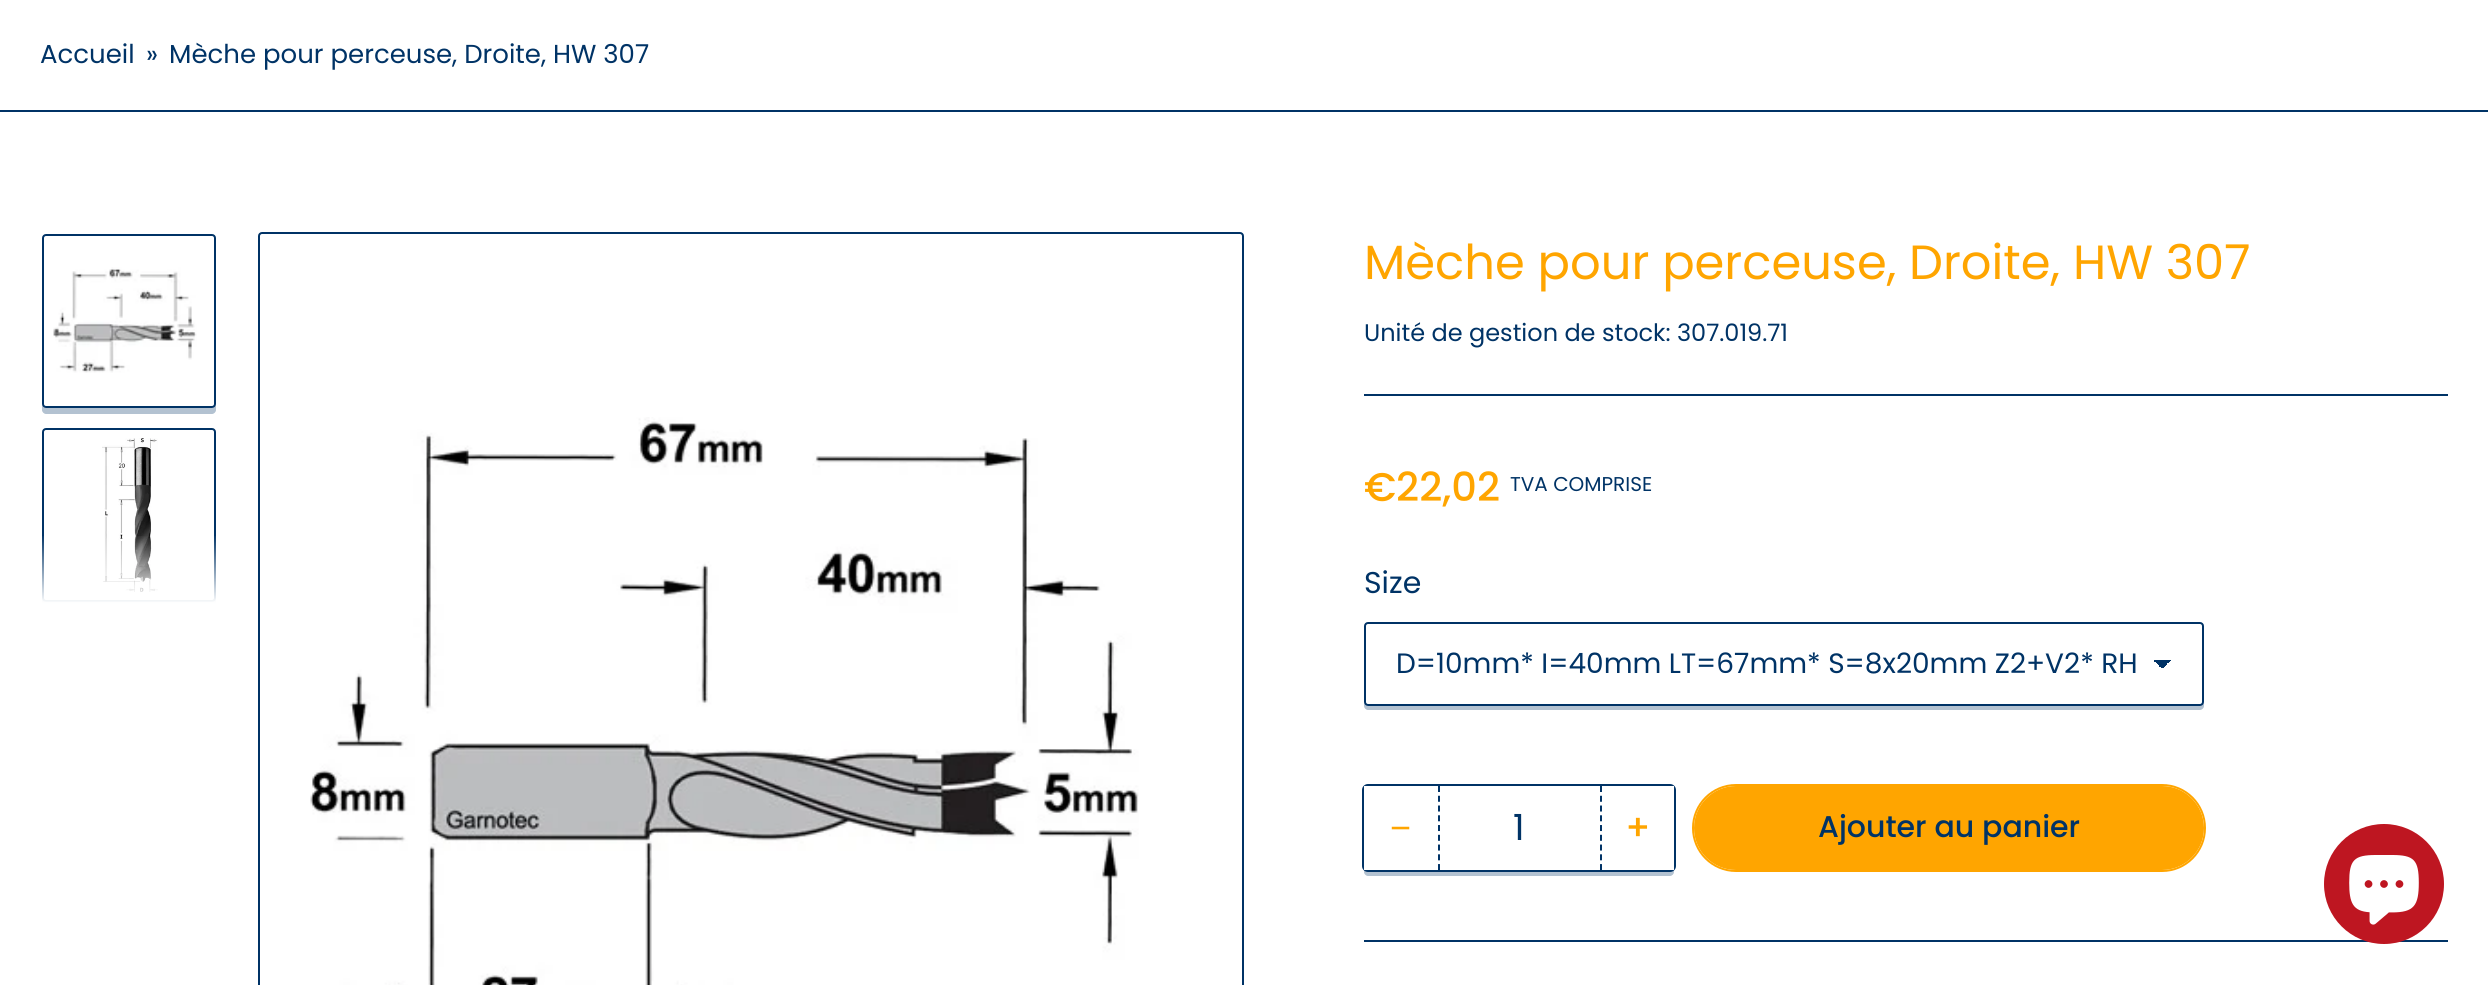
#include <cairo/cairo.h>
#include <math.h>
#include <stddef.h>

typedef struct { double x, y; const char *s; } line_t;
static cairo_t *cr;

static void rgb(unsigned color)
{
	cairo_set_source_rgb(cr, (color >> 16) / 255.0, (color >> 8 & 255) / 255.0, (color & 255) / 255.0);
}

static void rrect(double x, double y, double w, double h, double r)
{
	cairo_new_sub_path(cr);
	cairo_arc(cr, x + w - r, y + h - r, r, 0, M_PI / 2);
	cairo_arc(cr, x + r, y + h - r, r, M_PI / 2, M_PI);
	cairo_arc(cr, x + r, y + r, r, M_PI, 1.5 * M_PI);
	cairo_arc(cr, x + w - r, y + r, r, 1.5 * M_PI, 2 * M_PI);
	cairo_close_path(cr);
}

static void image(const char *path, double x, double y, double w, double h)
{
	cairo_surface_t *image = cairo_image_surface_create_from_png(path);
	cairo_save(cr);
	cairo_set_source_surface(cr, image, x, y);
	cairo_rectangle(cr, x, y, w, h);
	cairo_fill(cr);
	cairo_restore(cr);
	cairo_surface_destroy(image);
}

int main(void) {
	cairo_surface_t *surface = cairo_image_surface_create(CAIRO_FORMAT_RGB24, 2488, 985);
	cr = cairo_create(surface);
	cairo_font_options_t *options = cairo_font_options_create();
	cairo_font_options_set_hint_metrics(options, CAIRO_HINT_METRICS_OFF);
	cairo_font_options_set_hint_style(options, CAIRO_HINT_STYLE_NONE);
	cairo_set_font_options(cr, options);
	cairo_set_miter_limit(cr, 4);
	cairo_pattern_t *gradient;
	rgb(0xffffff);
	cairo_paint(cr);
	rgb(0x003366);
	cairo_rectangle(cr, 0, 110, 2488, 2);
	cairo_fill(cr);
	rgb(0xb3c2d1);
	cairo_new_path(cr);
	cairo_move_to(cr, 42, 404);
	cairo_line_to(cr, 42, 410);
	cairo_curve_to(cr, 42, 412, 44, 414, 46, 414);
	cairo_line_to(cr, 212, 414);
	cairo_curve_to(cr, 214, 414, 216, 412, 216, 410);
	cairo_line_to(cr, 216, 404);
	cairo_curve_to(cr, 216, 406, 214, 408, 212, 408);
	cairo_line_to(cr, 46, 408);
	cairo_curve_to(cr, 44, 408, 42, 406, 42, 404);
	cairo_close_path(cr);
	cairo_fill(cr);
	rgb(0xffffff);
	rrect(43, 235, 172, 172, 3);
	cairo_fill_preserve(cr);
	rgb(0x003366);
	cairo_stroke(cr);
	image("img/1.png", 53, 267, 144, 106);
	cairo_save(cr);
	cairo_rectangle(cr, 40, 232, 178, 372);
	cairo_clip(cr);
	rgb(0xb3c2d1);
	cairo_new_path(cr);
	cairo_move_to(cr, 42, 598);
	cairo_line_to(cr, 42, 604);
	cairo_curve_to(cr, 42, 606, 44, 608, 46, 608);
	cairo_line_to(cr, 212, 608);
	cairo_curve_to(cr, 214, 608, 216, 606, 216, 604);
	cairo_line_to(cr, 216, 598);
	cairo_curve_to(cr, 216, 600, 214, 602, 212, 602);
	cairo_line_to(cr, 46, 602);
	cairo_curve_to(cr, 44, 602, 42, 600, 42, 598);
	cairo_close_path(cr);
	cairo_fill(cr);
	cairo_restore(cr);
	rgb(0xffffff);
	rrect(43, 429, 172, 172, 3);
	cairo_fill_preserve(cr);
	rgb(0x003366);
	cairo_stroke(cr);
	image("img/2.png", 102, 438, 56, 154);
	gradient = cairo_pattern_create_linear(129, 604, 129, 534);
	cairo_pattern_add_color_stop_rgba(gradient, 0, 1, 1, 1, 1);
	cairo_pattern_add_color_stop_rgba(gradient, 1, 1, 1, 1, 0);
	cairo_set_source(cr, gradient);
	cairo_pattern_destroy(gradient);
	cairo_rectangle(cr, 42, 536, 174, 68);
	cairo_fill(cr);
	rrect(259, 233, 984, 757, 3);
	rgb(0x003366);
	cairo_stroke(cr);
	image("img/3.png", 310, 417, 829, 568);
	cairo_rectangle(cr, 1364, 394, 1084, 2);
	cairo_fill(cr);
	rgb(0xb3c2d1);
	cairo_new_path(cr);
	cairo_move_to(cr, 1364, 702);
	cairo_line_to(cr, 1364, 706);
	cairo_curve_to(cr, 1364, 708, 1366, 710, 1368, 710);
	cairo_line_to(cr, 2200, 710);
	cairo_curve_to(cr, 2202, 710, 2204, 708, 2204, 706);
	cairo_line_to(cr, 2204, 702);
	cairo_curve_to(cr, 2204, 704, 2202, 706, 2200, 706);
	cairo_line_to(cr, 1368, 706);
	cairo_curve_to(cr, 1366, 706, 1364, 704, 1364, 702);
	cairo_close_path(cr);
	cairo_fill(cr);
	gradient = cairo_pattern_create_linear(2162, 659, 2172, 669);
	cairo_pattern_add_color_stop_rgba(gradient, 0.5, 0, 0.2, 0.4, 1);
	cairo_pattern_add_color_stop_rgba(gradient, 0.5, 1, 1, 1, 1);
	cairo_set_source(cr, gradient);
	cairo_pattern_destroy(gradient);
	cairo_rectangle(cr, 2162, 660, 9, 8);
	cairo_fill(cr);
	gradient = cairo_pattern_create_linear(2152, 669, 2162, 659);
	cairo_pattern_add_color_stop_rgba(gradient, 0.5, 1, 1, 1, 1);
	cairo_pattern_add_color_stop_rgba(gradient, 0.5, 0, 0.2, 0.4, 1);
	cairo_set_source(cr, gradient);
	cairo_pattern_destroy(gradient);
	cairo_rectangle(cr, 2154, 660, 8, 8);
	cairo_fill(cr);
	rrect(1365, 623, 838, 82, 3);
	rgb(0x003366);
	cairo_stroke(cr);
	rgb(0xb3c2d1);
	cairo_new_path(cr);
	cairo_move_to(cr, 1364, 866);
	cairo_line_to(cr, 1364, 872);
	cairo_curve_to(cr, 1364, 874, 1366, 876, 1368, 876);
	cairo_line_to(cr, 1670, 876);
	cairo_curve_to(cr, 1672, 876, 1674, 874, 1674, 872);
	cairo_line_to(cr, 1674, 866);
	cairo_curve_to(cr, 1674, 868, 1672, 870, 1670, 870);
	cairo_line_to(cr, 1368, 870);
	cairo_curve_to(cr, 1366, 870, 1364, 868, 1364, 866);
	cairo_close_path(cr);
	cairo_fill(cr);
	rrect(1363, 785, 312, 86, 5);
	rgb(0x003366);
	cairo_stroke(cr);
	rgb(0xffffff);
	cairo_rectangle(cr, 1364, 786, 4, 84);
	cairo_fill(cr);
	cairo_new_path(cr);
	cairo_move_to(cr, 1601, 786);
	cairo_line_to(cr, 1601, 870);
	rgb(0x003366);
	cairo_set_dash(cr, (double[]){6, 3.76}, 2, 0);
	cairo_stroke(cr);
	cairo_new_path(cr);
	cairo_move_to(cr, 1439, 786);
	cairo_line_to(cr, 1439, 870);
	cairo_stroke(cr);
	rgb(0xffffff);
	cairo_rectangle(cr, 1670, 786, 4, 84);
	cairo_fill(cr);
	rrect(1693, 785, 512, 86, 43);
	rgb(0xffa500);
	cairo_set_dash(cr, NULL, 0, 0);
	cairo_stroke(cr);
	rrect(1694, 786, 510, 84, 42);
	cairo_fill(cr);
	rgb(0x003366);
	cairo_rectangle(cr, 1364, 940, 1084, 2);
	cairo_fill(cr);
	rgb(0xbe1621);
	cairo_arc(cr, 2384, 884, 60, 0, 2 * M_PI);
	cairo_fill(cr);
	image("img/4.png", 2349, 855, 70, 70);
	cairo_select_font_face(cr, "Poppins", CAIRO_FONT_SLANT_NORMAL, CAIRO_FONT_WEIGHT_NORMAL);
	cairo_set_font_size(cr, 26);
	rgb(0x003366);
	{
		static const line_t items[] = {
			{40, 63, "Accueil"},
			{146, 63, "»"},
			{169, 63, "Mèche pour perceuse, Droite, HW 307"},
		};
		for (size_t i = 0; i < sizeof items / sizeof *items; i++) {
			cairo_move_to(cr, items[i].x, items[i].y);
			cairo_show_text(cr, items[i].s);
		}
	}
	cairo_set_font_size(cr, 48);
	rgb(0xffa500);
	cairo_move_to(cr, 1364, 279);
	cairo_show_text(cr, "Mèche pour perceuse, Droite, HW 307");
	cairo_set_font_size(cr, 24);
	rgb(0x003366);
	cairo_move_to(cr, 1364, 341);
	cairo_show_text(cr, "Unité de gestion de stock: 307.019.71");
	cairo_select_font_face(cr, "Poppins Medium", CAIRO_FONT_SLANT_NORMAL, CAIRO_FONT_WEIGHT_NORMAL);
	cairo_set_font_size(cr, 40);
	rgb(0xffa500);
	cairo_move_to(cr, 1364, 501);
	cairo_show_text(cr, "€22,02");
	cairo_select_font_face(cr, "Poppins", CAIRO_FONT_SLANT_NORMAL, CAIRO_FONT_WEIGHT_NORMAL);
	cairo_set_font_size(cr, 20);
	rgb(0x003366);
	cairo_move_to(cr, 1510, 491);
	cairo_show_text(cr, "TVA COMPRISE");
	cairo_set_font_size(cr, 30);
	cairo_move_to(cr, 1364, 593);
	cairo_show_text(cr, "Size");
	cairo_set_font_size(cr, 28);
	cairo_move_to(cr, 1396, 673);
	cairo_show_text(cr, "D=10mm* I=40mm LT=67mm* S=8x20mm Z2+V2* RH");
	cairo_select_font_face(cr, "Liberation Sans", CAIRO_FONT_SLANT_NORMAL, CAIRO_FONT_WEIGHT_NORMAL);
	cairo_set_font_size(cr, 36);
	rgb(0xffa500);
	cairo_move_to(cr, 1390, 840);
	cairo_show_text(cr, "−");
	cairo_select_font_face(cr, "Poppins", CAIRO_FONT_SLANT_NORMAL, CAIRO_FONT_WEIGHT_NORMAL);
	rgb(0x003366);
	cairo_move_to(cr, 1513, 840);
	cairo_show_text(cr, "1");
	cairo_select_font_face(cr, "Poppins Medium", CAIRO_FONT_SLANT_NORMAL, CAIRO_FONT_WEIGHT_NORMAL);
	rgb(0xffa500);
	cairo_move_to(cr, 1625, 840);
	cairo_show_text(cr, "+");
	cairo_set_font_size(cr, 30);
	rgb(0x003366);
	cairo_move_to(cr, 1818, 837);
	cairo_show_text(cr, "Ajouter au panier");
	cairo_surface_write_to_png(surface, "page.png");
	cairo_font_options_destroy(options);
	cairo_destroy(cr);
	cairo_surface_destroy(surface);
	return 0;
}
